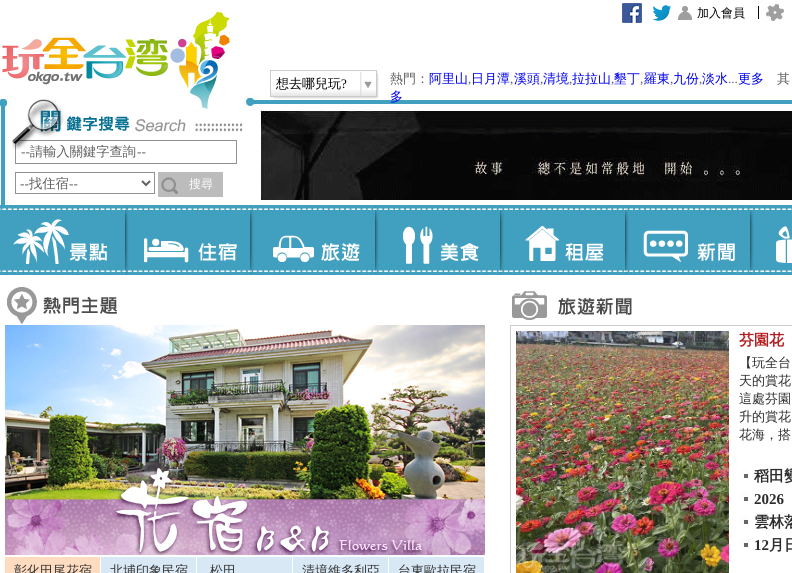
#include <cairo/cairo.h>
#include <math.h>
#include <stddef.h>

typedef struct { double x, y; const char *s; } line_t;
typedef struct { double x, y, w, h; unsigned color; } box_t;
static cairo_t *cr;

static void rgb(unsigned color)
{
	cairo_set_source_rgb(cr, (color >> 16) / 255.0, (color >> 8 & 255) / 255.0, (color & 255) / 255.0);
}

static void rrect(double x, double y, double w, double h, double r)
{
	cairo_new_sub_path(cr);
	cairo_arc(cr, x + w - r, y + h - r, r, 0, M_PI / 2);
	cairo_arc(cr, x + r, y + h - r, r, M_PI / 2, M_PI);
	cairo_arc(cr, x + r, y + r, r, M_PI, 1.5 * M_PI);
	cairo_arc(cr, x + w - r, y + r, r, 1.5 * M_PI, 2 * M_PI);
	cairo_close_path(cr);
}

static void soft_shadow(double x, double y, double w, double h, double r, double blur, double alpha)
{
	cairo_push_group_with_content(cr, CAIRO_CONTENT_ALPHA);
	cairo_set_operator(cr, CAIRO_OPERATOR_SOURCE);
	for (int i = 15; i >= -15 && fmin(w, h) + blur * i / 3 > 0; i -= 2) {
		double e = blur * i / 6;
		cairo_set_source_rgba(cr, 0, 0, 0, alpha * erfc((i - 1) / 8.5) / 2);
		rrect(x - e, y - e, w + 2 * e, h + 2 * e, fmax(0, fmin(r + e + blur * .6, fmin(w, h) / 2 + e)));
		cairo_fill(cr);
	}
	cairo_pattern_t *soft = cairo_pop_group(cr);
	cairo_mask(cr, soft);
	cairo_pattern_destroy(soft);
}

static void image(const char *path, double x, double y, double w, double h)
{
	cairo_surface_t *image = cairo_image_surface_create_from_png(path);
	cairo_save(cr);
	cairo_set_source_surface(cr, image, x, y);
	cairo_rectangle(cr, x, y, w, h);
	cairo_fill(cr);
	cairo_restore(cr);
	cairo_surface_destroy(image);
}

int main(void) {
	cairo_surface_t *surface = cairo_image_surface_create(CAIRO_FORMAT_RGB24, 792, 573);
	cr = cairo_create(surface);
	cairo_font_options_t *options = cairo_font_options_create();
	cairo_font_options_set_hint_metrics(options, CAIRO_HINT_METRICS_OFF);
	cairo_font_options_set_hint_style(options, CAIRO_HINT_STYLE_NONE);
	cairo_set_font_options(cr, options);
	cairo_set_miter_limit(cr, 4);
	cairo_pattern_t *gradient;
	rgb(0xffffff);
	cairo_paint(cr);
	image("img/1.png", 0, 95, 792, 180);
	image("img/2.png", 2, 12, 228, 97);
	image("img/3.png", 622, 3, 20, 20);
	image("img/4.png", 652, 5, 20, 16);
	image("img/5.png", 678, 6, 14, 14);
	image("img/6.png", 758, 4, 26, 17);
	rgb(0x332b29);
	soft_shadow(274, 74, 103, 23, 0, 1, 0.5);
	gradient = cairo_pattern_create_linear(324, 71, 324, 96);
	cairo_pattern_add_color_stop_rgba(gradient, 0.72, 1, 1, 1, 1);
	cairo_pattern_add_color_stop_rgba(gradient, 1, 0.898, 0.898, 0.898, 1);
	cairo_set_source(cr, gradient);
	cairo_pattern_destroy(gradient);
	cairo_rectangle(cr, 271, 72, 105, 24);
	cairo_fill(cr);
	cairo_rectangle(cr, 270.5, 70.5, 106, 26);
	rgb(0xcccccc);
	cairo_set_line_width(cr, 1);
	cairo_stroke(cr);
	image("img/7.png", 360, 72, 12, 25);
	image("img/9.png", 40, 110, 203, 22);
	cairo_rectangle(cr, 15.5, 140.5, 221, 23);
	rgb(0x929292);
	cairo_stroke(cr);
	cairo_rectangle(cr, 15.5, 172.5, 139, 21);
	cairo_stroke(cr);
	cairo_new_path(cr);
	cairo_move_to(cr, 142, 181);
	cairo_line_to(cr, 146, 185);
	cairo_line_to(cr, 150, 181);
	rgb(0x5e5e5e);
	cairo_set_line_width(cr, 2);
	cairo_stroke(cr);
	rgb(0xbcbcbc);
	cairo_rectangle(cr, 158, 172, 65, 25);
	cairo_fill(cr);
	image("img/10.png", 161, 177, 17, 17);
	image("img/11.png", 260, 110, 532, 90);
	image("img/12.png", 13, 219, 94, 45);
	image("img/13.png", 125, 205, 112, 70);
	image("img/14.png", 250, 205, 110, 70);
	image("img/15.png", 375, 205, 104, 70);
	image("img/16.png", 500, 205, 104, 70);
	image("img/17.png", 625, 205, 110, 70);
	image("img/18.png", 750, 205, 42, 70);
	image("img/19.png", 512, 291, 120, 29);
	cairo_rectangle(cr, 510.5, 325.5, 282, 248);
	rgb(0xcccccc);
	cairo_set_line_width(cr, 1);
	cairo_stroke(cr);
	image("img/20.png", 516, 331, 213, 242);
	image("img/21.png", 740, 470, 9, 9);
	image("img/21.png", 740, 493, 9, 9);
	image("img/21.png", 740, 516, 9, 9);
	image("img/21.png", 740, 539, 9, 9);
	image("img/22.png", 7, 287, 110, 37);
	image("img/23.png", 5, 325, 480, 230);
	{
		static const box_t items[] = {
			{5, 557, 95, 16, 0xffdcc0},
			{101, 557, 95, 16, 0xd9e8f5},
			{197, 557, 95, 16, 0xd9e8f5},
			{293, 557, 95, 16, 0xd9e8f5},
			{389, 557, 95, 16, 0xd9e8f5},
		};
		for (size_t i = 0; i < sizeof items / sizeof *items; i++) {
			rgb(items[i].color);
			cairo_rectangle(cr, items[i].x, items[i].y, items[i].w, items[i].h);
			cairo_fill(cr);
		}
	}
	cairo_select_font_face(cr, "WenQuanYi Zen Hei Medium", CAIRO_FONT_SLANT_NORMAL, CAIRO_FONT_WEIGHT_NORMAL);
	cairo_set_font_size(cr, 12);
	rgb(0x000000);
	cairo_move_to(cr, 697, 17);
	cairo_show_text(cr, "加入會員");
	cairo_set_font_size(cr, 13);
	cairo_move_to(cr, 276, 88);
	cairo_show_text(cr, "想去哪兒玩");
	cairo_select_font_face(cr, "Liberation Serif", CAIRO_FONT_SLANT_NORMAL, CAIRO_FONT_WEIGHT_NORMAL);
	cairo_move_to(cr, 341, 88);
	cairo_show_text(cr, "?");
	cairo_select_font_face(cr, "WenQuanYi Zen Hei Medium", CAIRO_FONT_SLANT_NORMAL, CAIRO_FONT_WEIGHT_NORMAL);
	rgb(0x5e5e5e);
	cairo_move_to(cr, 390, 83);
	cairo_show_text(cr, "熱門：");
	rgb(0x0000ee);
	cairo_move_to(cr, 429, 83);
	cairo_show_text(cr, "阿里山");
	cairo_select_font_face(cr, "Liberation Serif", CAIRO_FONT_SLANT_NORMAL, CAIRO_FONT_WEIGHT_NORMAL);
	rgb(0x5e5e5e);
	cairo_move_to(cr, 468, 83);
	cairo_show_text(cr, ",");
	cairo_select_font_face(cr, "WenQuanYi Zen Hei Medium", CAIRO_FONT_SLANT_NORMAL, CAIRO_FONT_WEIGHT_NORMAL);
	rgb(0x0000ee);
	cairo_move_to(cr, 471, 83);
	cairo_show_text(cr, "日月潭");
	cairo_select_font_face(cr, "Liberation Serif", CAIRO_FONT_SLANT_NORMAL, CAIRO_FONT_WEIGHT_NORMAL);
	rgb(0x5e5e5e);
	cairo_move_to(cr, 510, 83);
	cairo_show_text(cr, ",");
	cairo_select_font_face(cr, "WenQuanYi Zen Hei Medium", CAIRO_FONT_SLANT_NORMAL, CAIRO_FONT_WEIGHT_NORMAL);
	rgb(0x0000ee);
	cairo_move_to(cr, 514, 83);
	cairo_show_text(cr, "溪頭");
	cairo_select_font_face(cr, "Liberation Serif", CAIRO_FONT_SLANT_NORMAL, CAIRO_FONT_WEIGHT_NORMAL);
	rgb(0x5e5e5e);
	cairo_move_to(cr, 540, 83);
	cairo_show_text(cr, ",");
	cairo_select_font_face(cr, "WenQuanYi Zen Hei Medium", CAIRO_FONT_SLANT_NORMAL, CAIRO_FONT_WEIGHT_NORMAL);
	rgb(0x0000ee);
	cairo_move_to(cr, 543, 83);
	cairo_show_text(cr, "清境");
	cairo_select_font_face(cr, "Liberation Serif", CAIRO_FONT_SLANT_NORMAL, CAIRO_FONT_WEIGHT_NORMAL);
	rgb(0x5e5e5e);
	cairo_move_to(cr, 569, 83);
	cairo_show_text(cr, ",");
	cairo_select_font_face(cr, "WenQuanYi Zen Hei Medium", CAIRO_FONT_SLANT_NORMAL, CAIRO_FONT_WEIGHT_NORMAL);
	rgb(0x0000ee);
	cairo_move_to(cr, 572, 83);
	cairo_show_text(cr, "拉拉山");
	cairo_select_font_face(cr, "Liberation Serif", CAIRO_FONT_SLANT_NORMAL, CAIRO_FONT_WEIGHT_NORMAL);
	rgb(0x5e5e5e);
	cairo_move_to(cr, 611, 83);
	cairo_show_text(cr, ",");
	cairo_select_font_face(cr, "WenQuanYi Zen Hei Medium", CAIRO_FONT_SLANT_NORMAL, CAIRO_FONT_WEIGHT_NORMAL);
	rgb(0x0000ee);
	cairo_move_to(cr, 614, 83);
	cairo_show_text(cr, "墾丁");
	cairo_select_font_face(cr, "Liberation Serif", CAIRO_FONT_SLANT_NORMAL, CAIRO_FONT_WEIGHT_NORMAL);
	rgb(0x5e5e5e);
	cairo_move_to(cr, 640, 83);
	cairo_show_text(cr, ",");
	cairo_select_font_face(cr, "WenQuanYi Zen Hei Medium", CAIRO_FONT_SLANT_NORMAL, CAIRO_FONT_WEIGHT_NORMAL);
	rgb(0x0000ee);
	cairo_move_to(cr, 644, 83);
	cairo_show_text(cr, "羅東");
	cairo_select_font_face(cr, "Liberation Serif", CAIRO_FONT_SLANT_NORMAL, CAIRO_FONT_WEIGHT_NORMAL);
	rgb(0x5e5e5e);
	cairo_move_to(cr, 670, 83);
	cairo_show_text(cr, ",");
	cairo_select_font_face(cr, "WenQuanYi Zen Hei Medium", CAIRO_FONT_SLANT_NORMAL, CAIRO_FONT_WEIGHT_NORMAL);
	rgb(0x0000ee);
	cairo_move_to(cr, 673, 83);
	cairo_show_text(cr, "九份");
	cairo_select_font_face(cr, "Liberation Serif", CAIRO_FONT_SLANT_NORMAL, CAIRO_FONT_WEIGHT_NORMAL);
	rgb(0x5e5e5e);
	cairo_move_to(cr, 699, 83);
	cairo_show_text(cr, ",");
	cairo_select_font_face(cr, "WenQuanYi Zen Hei Medium", CAIRO_FONT_SLANT_NORMAL, CAIRO_FONT_WEIGHT_NORMAL);
	rgb(0x0000ee);
	cairo_move_to(cr, 702, 83);
	cairo_show_text(cr, "淡水");
	cairo_select_font_face(cr, "Liberation Serif", CAIRO_FONT_SLANT_NORMAL, CAIRO_FONT_WEIGHT_NORMAL);
	rgb(0x5e5e5e);
	cairo_move_to(cr, 728, 83);
	cairo_show_text(cr, "...");
	cairo_select_font_face(cr, "WenQuanYi Zen Hei Medium", CAIRO_FONT_SLANT_NORMAL, CAIRO_FONT_WEIGHT_NORMAL);
	rgb(0x0000ee);
	cairo_move_to(cr, 738, 83);
	cairo_show_text(cr, "更多");
	rgb(0x5e5e5e);
	cairo_move_to(cr, 777, 83);
	cairo_show_text(cr, "其");
	rgb(0x0000ee);
	cairo_move_to(cr, 390, 101);
	cairo_show_text(cr, "多");
	cairo_select_font_face(cr, "Liberation Serif", CAIRO_FONT_SLANT_NORMAL, CAIRO_FONT_WEIGHT_NORMAL);
	cairo_set_font_size(cr, 13.25);
	rgb(0x5e5e5e);
	cairo_move_to(cr, 21, 156);
	cairo_show_text(cr, "--");
	cairo_select_font_face(cr, "WenQuanYi Zen Hei Medium", CAIRO_FONT_SLANT_NORMAL, CAIRO_FONT_WEIGHT_NORMAL);
	cairo_move_to(cr, 30, 156);
	cairo_show_text(cr, "請輸入關鍵字查詢");
	image("img/8.png", 12, 99, 52, 51);
	cairo_select_font_face(cr, "Liberation Serif", CAIRO_FONT_SLANT_NORMAL, CAIRO_FONT_WEIGHT_NORMAL);
	cairo_move_to(cr, 137, 156);
	cairo_show_text(cr, "--");
	cairo_move_to(cr, 20, 188);
	cairo_show_text(cr, "--");
	cairo_select_font_face(cr, "WenQuanYi Zen Hei Medium", CAIRO_FONT_SLANT_NORMAL, CAIRO_FONT_WEIGHT_NORMAL);
	cairo_move_to(cr, 29, 188);
	cairo_show_text(cr, "找住宿");
	cairo_select_font_face(cr, "Liberation Serif", CAIRO_FONT_SLANT_NORMAL, CAIRO_FONT_WEIGHT_NORMAL);
	cairo_move_to(cr, 69, 188);
	cairo_show_text(cr, "--");
	cairo_select_font_face(cr, "WenQuanYi Zen Hei Medium", CAIRO_FONT_SLANT_NORMAL, CAIRO_FONT_WEIGHT_NORMAL);
	cairo_set_font_size(cr, 12);
	rgb(0xffffff);
	cairo_move_to(cr, 189, 188);
	cairo_show_text(cr, "搜尋");
	cairo_select_font_face(cr, "WenQuanYi Zen Hei", CAIRO_FONT_SLANT_NORMAL, CAIRO_FONT_WEIGHT_BOLD);
	cairo_set_font_size(cr, 15);
	rgb(0xb41d20);
	cairo_move_to(cr, 739, 345);
	cairo_show_text(cr, "芬園花");
	cairo_select_font_face(cr, "WenQuanYi Zen Hei Medium", CAIRO_FONT_SLANT_NORMAL, CAIRO_FONT_WEIGHT_NORMAL);
	cairo_set_font_size(cr, 13);
	rgb(0x2c2c2c);
	{
		static const line_t items[] = {
			{739, 367, "【玩全台"},
			{739, 385, "天的賞花"},
			{739, 403, "這處芬園"},
			{739, 421, "升的賞花"},
			{739, 439, "花海，搭"},
		};
		for (size_t i = 0; i < sizeof items / sizeof *items; i++) {
			cairo_move_to(cr, items[i].x, items[i].y);
			cairo_show_text(cr, items[i].s);
		}
	}
	cairo_select_font_face(cr, "WenQuanYi Zen Hei", CAIRO_FONT_SLANT_NORMAL, CAIRO_FONT_WEIGHT_BOLD);
	cairo_set_font_size(cr, 15);
	cairo_move_to(cr, 754, 481);
	cairo_show_text(cr, "稻田變");
	cairo_select_font_face(cr, "Liberation Serif", CAIRO_FONT_SLANT_NORMAL, CAIRO_FONT_WEIGHT_BOLD);
	cairo_move_to(cr, 754, 504);
	cairo_show_text(cr, "2026");
	cairo_select_font_face(cr, "WenQuanYi Zen Hei", CAIRO_FONT_SLANT_NORMAL, CAIRO_FONT_WEIGHT_BOLD);
	cairo_move_to(cr, 754, 527);
	cairo_show_text(cr, "雲林落");
	cairo_select_font_face(cr, "Liberation Serif", CAIRO_FONT_SLANT_NORMAL, CAIRO_FONT_WEIGHT_BOLD);
	cairo_move_to(cr, 754, 550);
	cairo_show_text(cr, "12");
	cairo_select_font_face(cr, "WenQuanYi Zen Hei", CAIRO_FONT_SLANT_NORMAL, CAIRO_FONT_WEIGHT_BOLD);
	cairo_move_to(cr, 769, 550);
	cairo_show_text(cr, "月日");
	cairo_select_font_face(cr, "WenQuanYi Zen Hei Medium", CAIRO_FONT_SLANT_NORMAL, CAIRO_FONT_WEIGHT_NORMAL);
	cairo_set_font_size(cr, 13);
	rgb(0x333333);
	{
		static const line_t items[] = {
			{14, 575, "彰化田尾花宿"},
			{110, 575, "北埔印象民宿"},
			{210, 575, "松田"},
			{302, 575, "清境維多利亞"},
			{398, 575, "台東歐拉民宿"},
		};
		for (size_t i = 0; i < sizeof items / sizeof *items; i++) {
			cairo_move_to(cr, items[i].x, items[i].y);
			cairo_show_text(cr, items[i].s);
		}
	}
	cairo_surface_write_to_png(surface, "page.png");
	cairo_font_options_destroy(options);
	cairo_destroy(cr);
	cairo_surface_destroy(surface);
	return 0;
}
